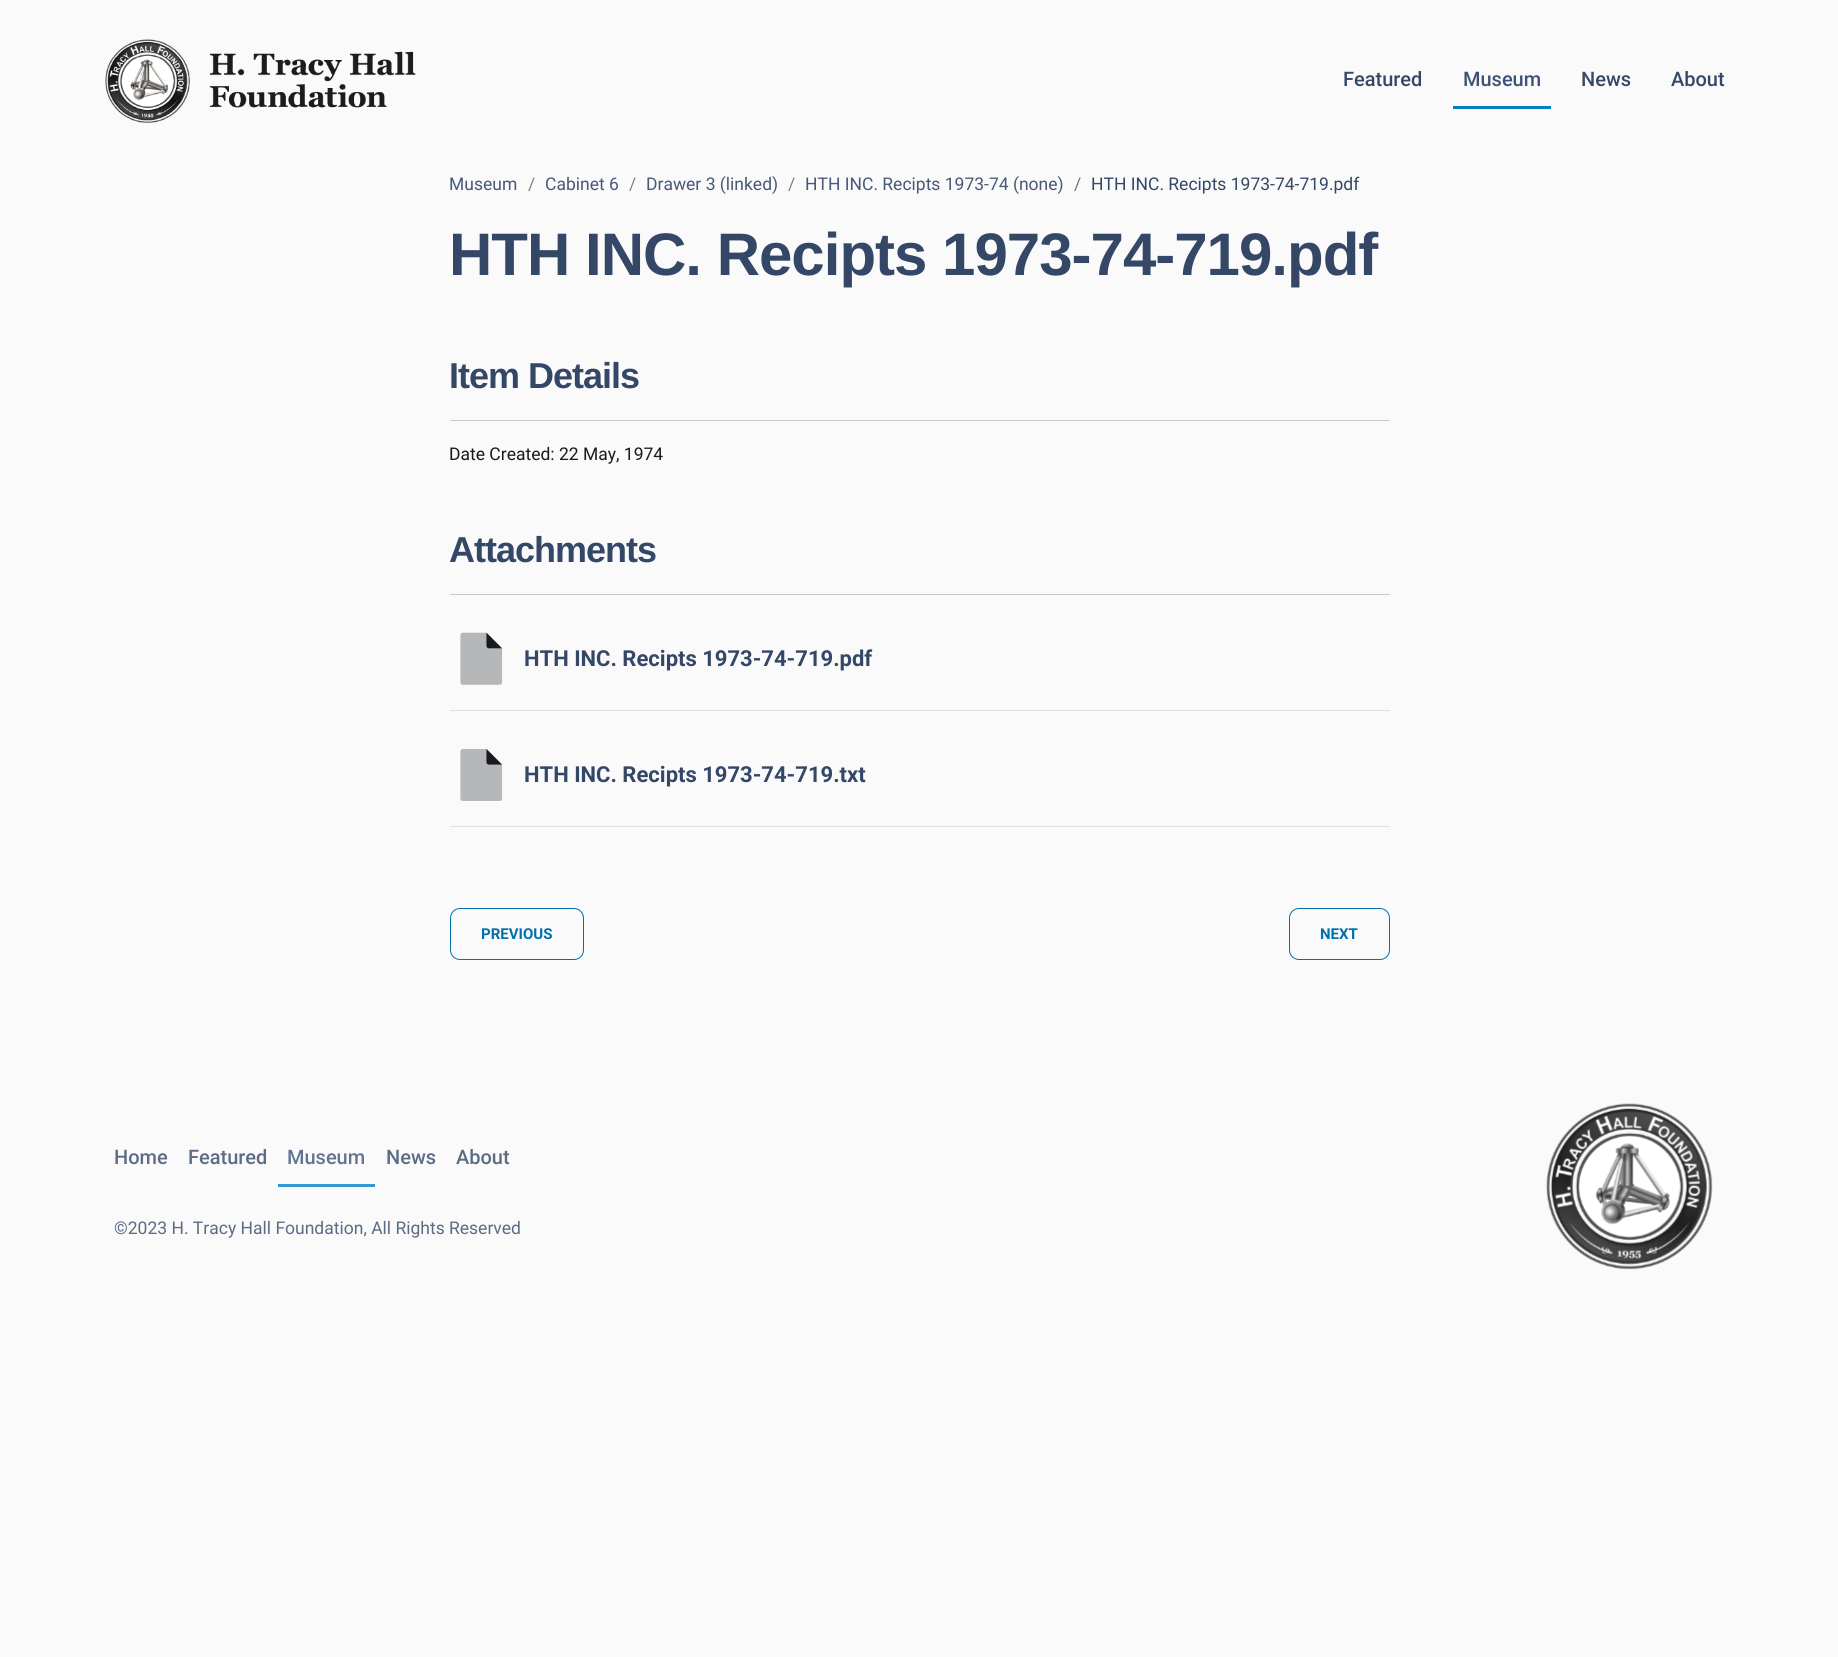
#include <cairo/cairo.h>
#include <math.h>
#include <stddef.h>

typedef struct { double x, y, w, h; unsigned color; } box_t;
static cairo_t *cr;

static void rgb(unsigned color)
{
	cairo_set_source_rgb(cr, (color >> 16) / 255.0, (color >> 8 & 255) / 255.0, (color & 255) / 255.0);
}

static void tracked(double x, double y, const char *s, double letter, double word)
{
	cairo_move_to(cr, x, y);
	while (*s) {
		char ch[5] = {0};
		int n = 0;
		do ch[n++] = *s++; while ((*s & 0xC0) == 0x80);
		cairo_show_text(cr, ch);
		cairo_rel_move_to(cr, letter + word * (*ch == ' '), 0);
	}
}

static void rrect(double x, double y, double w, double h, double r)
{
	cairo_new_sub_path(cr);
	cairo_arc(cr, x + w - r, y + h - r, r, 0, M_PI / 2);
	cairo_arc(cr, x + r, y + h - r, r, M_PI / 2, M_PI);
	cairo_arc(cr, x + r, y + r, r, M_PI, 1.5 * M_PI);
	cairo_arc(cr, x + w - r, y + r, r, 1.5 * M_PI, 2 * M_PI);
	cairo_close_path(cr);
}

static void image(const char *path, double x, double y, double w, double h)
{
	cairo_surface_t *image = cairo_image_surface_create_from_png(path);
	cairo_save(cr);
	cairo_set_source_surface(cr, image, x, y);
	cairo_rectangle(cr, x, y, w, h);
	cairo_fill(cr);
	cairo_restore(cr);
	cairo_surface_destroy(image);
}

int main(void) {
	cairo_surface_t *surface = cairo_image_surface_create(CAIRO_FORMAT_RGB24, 1838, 1657);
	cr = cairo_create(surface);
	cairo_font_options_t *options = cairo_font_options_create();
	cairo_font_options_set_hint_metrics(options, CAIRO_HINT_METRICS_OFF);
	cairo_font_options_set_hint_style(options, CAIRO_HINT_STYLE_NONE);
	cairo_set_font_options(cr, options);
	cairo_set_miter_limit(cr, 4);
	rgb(0xfafafa);
	cairo_paint(cr);
	image("img/1.png", 105, 39, 311, 84);
	{
		static const box_t items[] = {
			{1453, 106, 98, 3, 0x0081c6},
			{450, 420, 940, 1, 0xc8c8c8},
			{450, 594, 940, 1, 0xc8c8c8},
			{450, 710, 940, 1, 0xe1e1e1},
		};
		for (size_t i = 0; i < sizeof items / sizeof *items; i++) {
			rgb(items[i].color);
			cairo_rectangle(cr, items[i].x, items[i].y, items[i].w, items[i].h);
			cairo_fill(cr);
		}
	}
	image("img/2.png", 460, 632, 43, 53);
	cairo_rectangle(cr, 450, 826, 940, 1);
	cairo_fill(cr);
	image("img/3.png", 460, 749, 43, 52);
	rrect(450.5, 908.5, 133, 51, 9.5);
	rgb(0x0070ac);
	cairo_set_line_width(cr, 1);
	cairo_stroke(cr);
	rrect(1289.5, 908.5, 100, 51, 9.5);
	cairo_stroke(cr);
	rgb(0x3299d0);
	cairo_rectangle(cr, 278, 1184, 97, 3);
	cairo_fill(cr);
	image("img/4.png", 1546, 1103, 167, 167);
	cairo_select_font_face(cr, "Roboto Medium", CAIRO_FONT_SLANT_NORMAL, CAIRO_FONT_WEIGHT_NORMAL);
	cairo_set_font_size(cr, 20);
	rgb(0x344767);
	cairo_move_to(cr, 1343, 86);
	cairo_show_text(cr, "Featured");
	rgb(0x3c5276);
	cairo_move_to(cr, 1463, 86);
	cairo_show_text(cr, "Museum");
	rgb(0x344767);
	cairo_move_to(cr, 1581, 86);
	cairo_show_text(cr, "News");
	cairo_move_to(cr, 1671, 86);
	cairo_show_text(cr, "About");
	cairo_select_font_face(cr, "Roboto", CAIRO_FONT_SLANT_NORMAL, CAIRO_FONT_WEIGHT_NORMAL);
	cairo_set_font_size(cr, 17.5);
	rgb(0x485976);
	cairo_move_to(cr, 449, 190);
	cairo_show_text(cr, "Museum");
	rgb(0x7a828a);
	cairo_move_to(cr, 528, 190);
	cairo_show_text(cr, "/");
	rgb(0x485976);
	cairo_move_to(cr, 545, 190);
	cairo_show_text(cr, "Cabinet 6");
	rgb(0x7a828a);
	cairo_move_to(cr, 629, 190);
	cairo_show_text(cr, "/");
	rgb(0x485976);
	cairo_move_to(cr, 646, 190);
	cairo_show_text(cr, "Drawer 3 (linked)");
	rgb(0x7a828a);
	cairo_move_to(cr, 788, 190);
	cairo_show_text(cr, "/");
	rgb(0x485976);
	cairo_move_to(cr, 805, 190);
	cairo_show_text(cr, "HTH INC. Recipts 1973-74 (none)");
	rgb(0x6c757d);
	cairo_move_to(cr, 1074, 190);
	cairo_show_text(cr, "/");
	rgb(0x344767);
	cairo_move_to(cr, 1091, 190);
	cairo_show_text(cr, "HTH INC. Recipts 1973-74-719.pdf");
	cairo_select_font_face(cr, "Liberation Sans", CAIRO_FONT_SLANT_NORMAL, CAIRO_FONT_WEIGHT_BOLD);
	cairo_set_font_size(cr, 60);
	tracked(449, 275, "HTH INC. Recipts 1973-74-719.pdf", -1, 0);
	cairo_set_font_size(cr, 36);
	tracked(449, 388, "Item Details", -1, 0);
	cairo_select_font_face(cr, "Roboto", CAIRO_FONT_SLANT_NORMAL, CAIRO_FONT_WEIGHT_NORMAL);
	cairo_set_font_size(cr, 17.5);
	rgb(0x191a1e);
	cairo_move_to(cr, 449, 460);
	cairo_show_text(cr, "Date Created: 22 May, 1974");
	cairo_select_font_face(cr, "Liberation Sans", CAIRO_FONT_SLANT_NORMAL, CAIRO_FONT_WEIGHT_BOLD);
	cairo_set_font_size(cr, 36);
	rgb(0x344767);
	tracked(449, 562, "Attachments", -1, 0);
	cairo_select_font_face(cr, "Roboto", CAIRO_FONT_SLANT_NORMAL, CAIRO_FONT_WEIGHT_BOLD);
	cairo_set_font_size(cr, 22);
	cairo_move_to(cr, 524, 666);
	cairo_show_text(cr, "HTH INC. Recipts 1973-74-719.pdf");
	cairo_move_to(cr, 524, 782);
	cairo_show_text(cr, "HTH INC. Recipts 1973-74-719.txt");
	cairo_set_font_size(cr, 15);
	rgb(0x0070ac);
	cairo_move_to(cr, 481, 939);
	cairo_show_text(cr, "PREVIOUS");
	cairo_move_to(cr, 1320, 939);
	cairo_show_text(cr, "NEXT");
	cairo_select_font_face(cr, "Roboto Medium", CAIRO_FONT_SLANT_NORMAL, CAIRO_FONT_WEIGHT_NORMAL);
	cairo_set_font_size(cr, 20);
	rgb(0x5c6b84);
	cairo_move_to(cr, 114, 1164);
	cairo_show_text(cr, "Home");
	cairo_move_to(cr, 188, 1164);
	cairo_show_text(cr, "Featured");
	rgb(0x627490);
	cairo_move_to(cr, 287, 1164);
	cairo_show_text(cr, "Museum");
	rgb(0x5c6b84);
	cairo_move_to(cr, 386, 1164);
	cairo_show_text(cr, "News");
	cairo_move_to(cr, 456, 1164);
	cairo_show_text(cr, "About");
	cairo_select_font_face(cr, "Roboto", CAIRO_FONT_SLANT_NORMAL, CAIRO_FONT_WEIGHT_NORMAL);
	cairo_set_font_size(cr, 17.5);
	cairo_move_to(cr, 114, 1234);
	cairo_show_text(cr, "©2023 H. Tracy Hall Foundation, All Rights Reserved");
	cairo_surface_write_to_png(surface, "page.png");
	cairo_font_options_destroy(options);
	cairo_destroy(cr);
	cairo_surface_destroy(surface);
	return 0;
}
